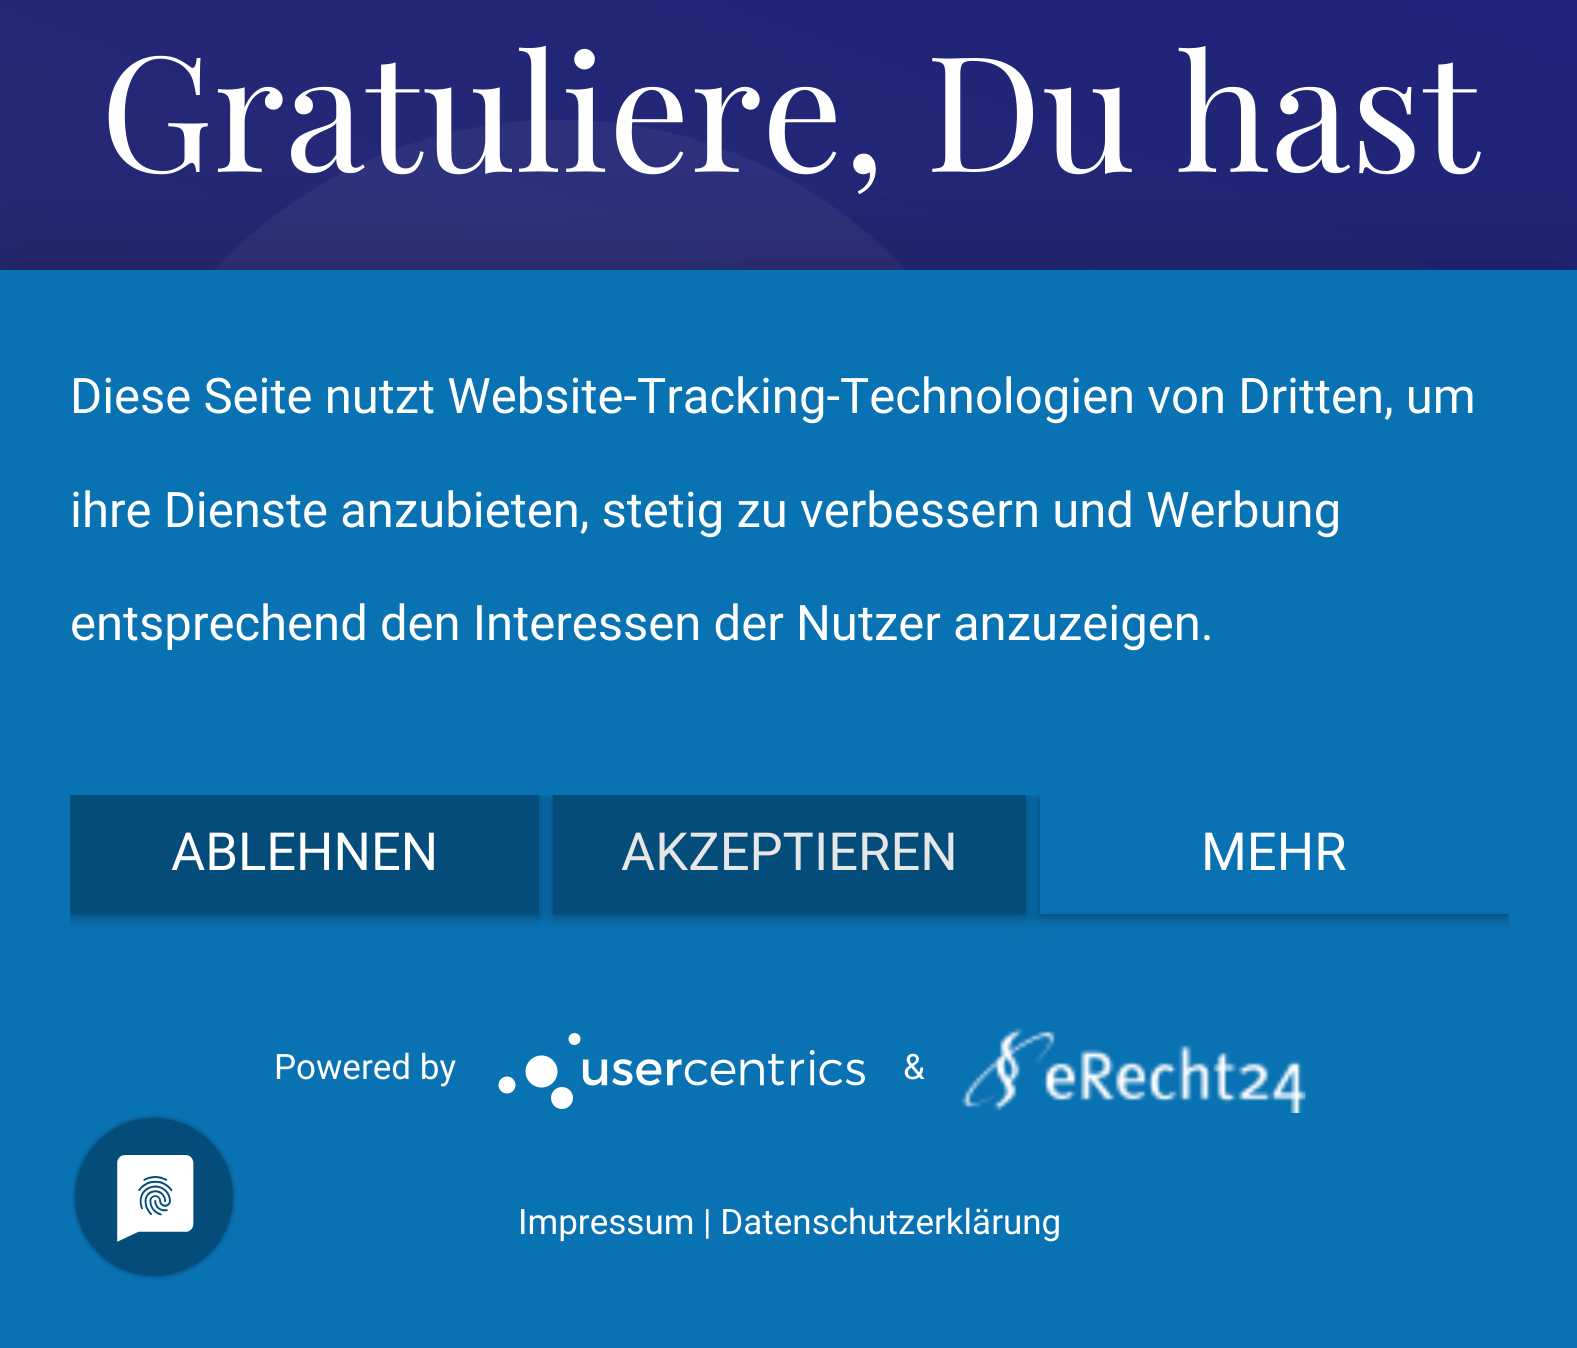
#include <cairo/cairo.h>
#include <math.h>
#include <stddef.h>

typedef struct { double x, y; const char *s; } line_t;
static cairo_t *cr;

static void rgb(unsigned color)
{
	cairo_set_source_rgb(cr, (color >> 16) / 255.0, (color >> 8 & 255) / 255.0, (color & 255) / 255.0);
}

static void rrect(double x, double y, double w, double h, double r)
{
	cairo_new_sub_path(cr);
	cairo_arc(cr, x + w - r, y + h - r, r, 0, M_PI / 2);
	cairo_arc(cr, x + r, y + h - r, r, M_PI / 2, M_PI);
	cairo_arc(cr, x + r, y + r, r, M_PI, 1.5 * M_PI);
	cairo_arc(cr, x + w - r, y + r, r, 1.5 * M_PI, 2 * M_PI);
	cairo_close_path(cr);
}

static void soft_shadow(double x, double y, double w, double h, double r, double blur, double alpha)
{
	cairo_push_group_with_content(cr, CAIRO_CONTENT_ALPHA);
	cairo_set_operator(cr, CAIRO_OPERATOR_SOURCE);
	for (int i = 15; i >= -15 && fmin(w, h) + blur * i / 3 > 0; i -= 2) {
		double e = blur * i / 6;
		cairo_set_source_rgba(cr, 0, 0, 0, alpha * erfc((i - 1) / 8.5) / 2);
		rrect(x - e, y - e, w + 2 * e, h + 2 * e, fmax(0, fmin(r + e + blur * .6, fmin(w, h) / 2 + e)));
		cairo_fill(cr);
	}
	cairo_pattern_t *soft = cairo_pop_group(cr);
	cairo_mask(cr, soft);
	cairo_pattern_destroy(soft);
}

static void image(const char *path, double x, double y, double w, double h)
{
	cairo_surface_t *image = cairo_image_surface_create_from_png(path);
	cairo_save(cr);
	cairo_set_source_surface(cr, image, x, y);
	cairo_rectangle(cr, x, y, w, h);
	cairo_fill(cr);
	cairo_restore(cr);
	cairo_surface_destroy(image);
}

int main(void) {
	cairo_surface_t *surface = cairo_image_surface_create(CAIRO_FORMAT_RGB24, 1577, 1348);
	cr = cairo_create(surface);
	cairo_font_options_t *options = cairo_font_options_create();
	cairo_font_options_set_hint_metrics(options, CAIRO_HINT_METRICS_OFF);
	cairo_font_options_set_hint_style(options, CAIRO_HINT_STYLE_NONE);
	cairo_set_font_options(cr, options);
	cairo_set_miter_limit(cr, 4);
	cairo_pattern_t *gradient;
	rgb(0xffffff);
	cairo_paint(cr);
	gradient = cairo_pattern_create_linear(-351, 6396, 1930, 128);
	cairo_pattern_add_color_stop_rgba(gradient, 0.4, 0.247, 0.271, 0.361, 1);
	cairo_pattern_add_color_stop_rgba(gradient, 1, 0.122, 0.137, 0.478, 1);
	cairo_set_source(cr, gradient);
	cairo_pattern_destroy(gradient);
	cairo_rectangle(cr, 0, 0, 1577, 270);
	cairo_fill(cr);
	cairo_set_source_rgba(cr, 1, 1, 1, 0.05);
	cairo_new_path(cr);
	cairo_move_to(cr, 560, 120);
	cairo_curve_to(cr, 298, 120, 85, 333, 85, 595);
	cairo_curve_to(cr, 85, 857, 298, 1070, 560, 1070);
	cairo_curve_to(cr, 822, 1070, 1035, 857, 1035, 595);
	cairo_curve_to(cr, 1035, 333, 822, 120, 560, 120);
	cairo_close_path(cr);
	cairo_move_to(cr, 713, 595);
	cairo_curve_to(cr, 713, 679, 644, 748, 560, 748);
	cairo_curve_to(cr, 476, 748, 407, 679, 407, 595);
	cairo_curve_to(cr, 407, 511, 476, 442, 560, 442);
	cairo_curve_to(cr, 644, 442, 713, 511, 713, 595);
	cairo_close_path(cr);
	cairo_fill(cr);
	rgb(0x000000);
	soft_shadow(0, 291, 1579, 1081, 0, 63, 0.3);
	rgb(0x0972b3);
	cairo_rectangle(cr, 0, 270, 1577, 1078);
	cairo_fill(cr);
	cairo_save(cr);
	cairo_rectangle(cr, 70, 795, 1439, 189);
	cairo_clip(cr);
	rgb(0x000000);
	soft_shadow(70, 798, 469, 119, 0, 7, 0.4);
	cairo_restore(cr);
	rgb(0x044d7a);
	cairo_rectangle(cr, 70, 795, 469, 119);
	cairo_fill(cr);
	cairo_save(cr);
	cairo_rectangle(cr, 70, 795, 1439, 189);
	cairo_clip(cr);
	rgb(0x000000);
	soft_shadow(553, 798, 473, 119, 0, 7, 0.4);
	cairo_restore(cr);
	cairo_rectangle(cr, 553, 795, 473, 119);
	cairo_fill(cr);
	cairo_save(cr);
	cairo_rectangle(cr, 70, 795, 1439, 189);
	cairo_clip(cr);
	rgb(0x000000);
	soft_shadow(1040, 798, 469, 119, 0, 7, 0.4);
	cairo_restore(cr);
	rgb(0x0972b3);
	cairo_rectangle(cr, 1040, 795, 469, 119);
	cairo_fill(cr);
	image("img/1.png", 498, 1033, 367, 76);
	image("img/2.png", 961, 1028, 345, 85);
	image("img/3.png", 71, 1114, 166, 166);
	cairo_select_font_face(cr, "Playfair Display", CAIRO_FONT_SLANT_NORMAL, CAIRO_FONT_WEIGHT_NORMAL);
	cairo_set_font_size(cr, 161);
	rgb(0xffffff);
	cairo_move_to(cr, 100, 172);
	cairo_show_text(cr, "Gratuliere, Du hast");
	cairo_select_font_face(cr, "Roboto", CAIRO_FONT_SLANT_NORMAL, CAIRO_FONT_WEIGHT_NORMAL);
	cairo_set_font_size(cr, 49);
	{
		static const line_t items[] = {
			{70, 413, "Diese Seite nutzt Website-Tracking-Technologien von Dritten, um"},
			{70, 527, "ihre Dienste anzubieten, stetig zu verbessern und Werbung"},
			{70, 640, "entsprechend den Interessen der Nutzer anzuzeigen."},
		};
		for (size_t i = 0; i < sizeof items / sizeof *items; i++) {
			cairo_move_to(cr, items[i].x, items[i].y);
			cairo_show_text(cr, items[i].s);
		}
	}
	cairo_set_font_size(cr, 52.5);
	cairo_move_to(cr, 171, 870);
	cairo_show_text(cr, "ABLEHNEN");
	rgb(0xe6e6e6);
	cairo_move_to(cr, 621, 870);
	cairo_show_text(cr, "AKZEPTIEREN");
	rgb(0xffffff);
	cairo_move_to(cr, 1201, 870);
	cairo_show_text(cr, "MEHR");
	cairo_set_font_size(cr, 35);
	{
		static const line_t items[] = {
			{274, 1079, "Powered by"},
			{903, 1079, "&"},
			{518, 1234, "Impressum | Datenschutzerklärung"},
		};
		for (size_t i = 0; i < sizeof items / sizeof *items; i++) {
			cairo_move_to(cr, items[i].x, items[i].y);
			cairo_show_text(cr, items[i].s);
		}
	}
	cairo_surface_write_to_png(surface, "page.png");
	cairo_font_options_destroy(options);
	cairo_destroy(cr);
	cairo_surface_destroy(surface);
	return 0;
}
